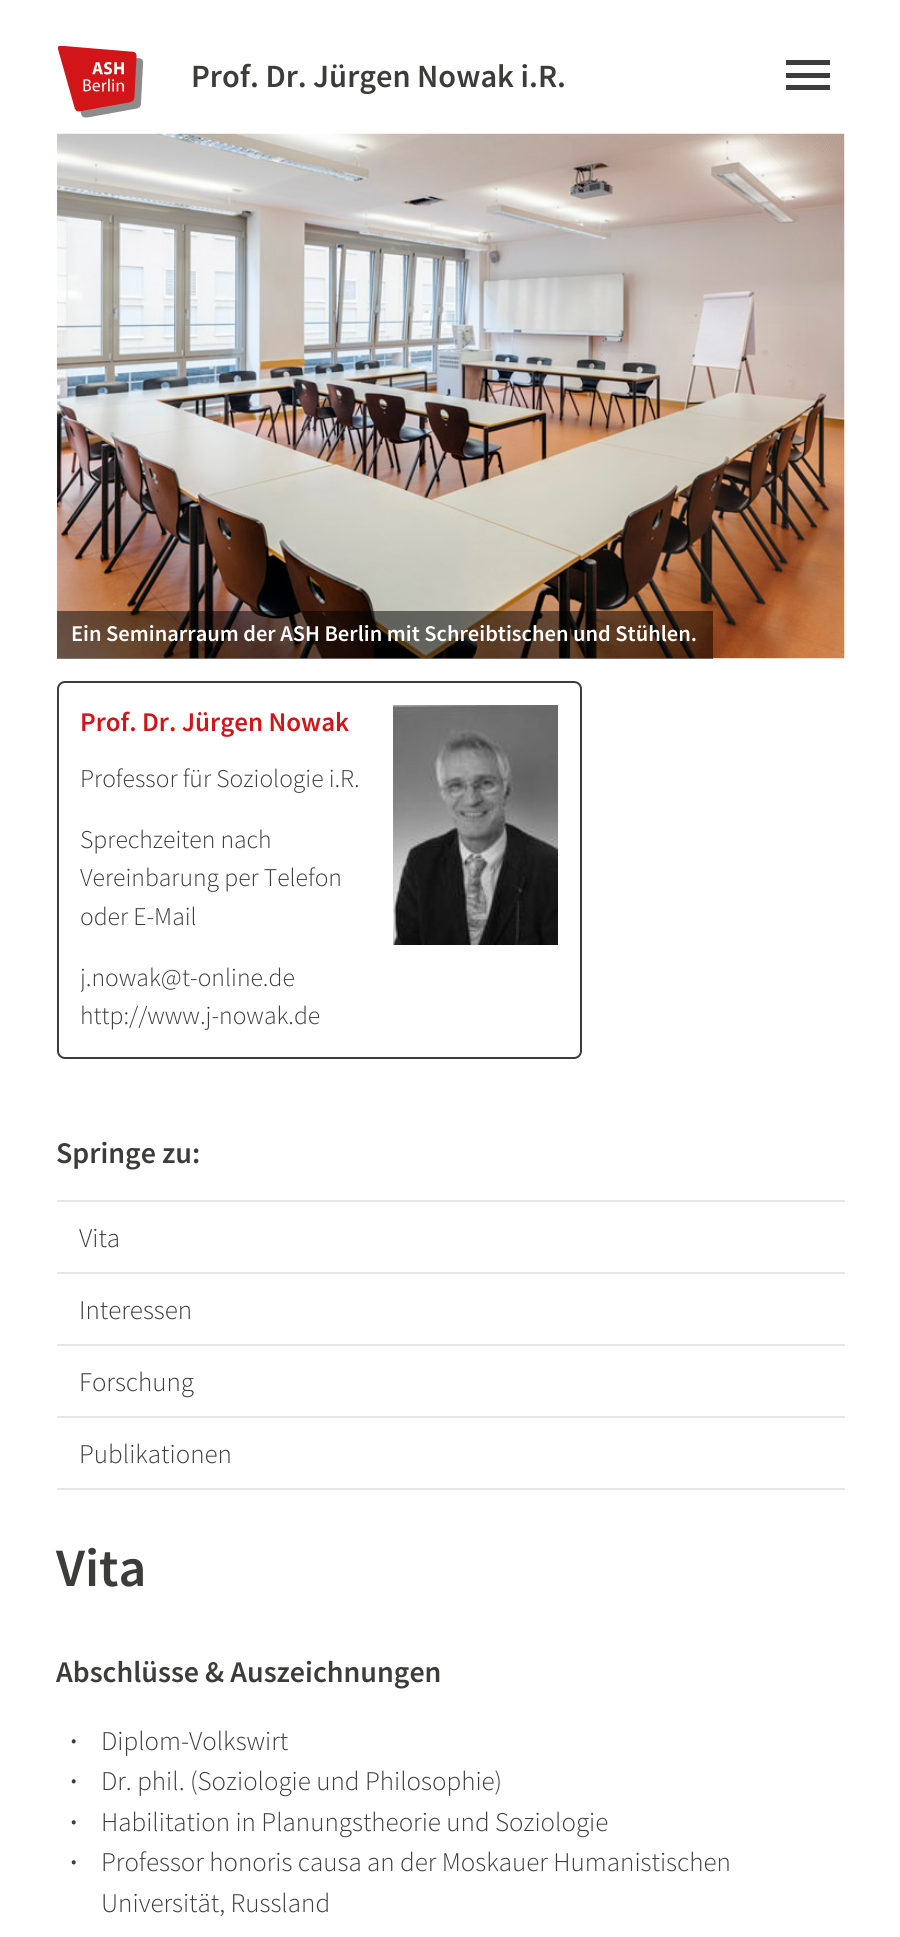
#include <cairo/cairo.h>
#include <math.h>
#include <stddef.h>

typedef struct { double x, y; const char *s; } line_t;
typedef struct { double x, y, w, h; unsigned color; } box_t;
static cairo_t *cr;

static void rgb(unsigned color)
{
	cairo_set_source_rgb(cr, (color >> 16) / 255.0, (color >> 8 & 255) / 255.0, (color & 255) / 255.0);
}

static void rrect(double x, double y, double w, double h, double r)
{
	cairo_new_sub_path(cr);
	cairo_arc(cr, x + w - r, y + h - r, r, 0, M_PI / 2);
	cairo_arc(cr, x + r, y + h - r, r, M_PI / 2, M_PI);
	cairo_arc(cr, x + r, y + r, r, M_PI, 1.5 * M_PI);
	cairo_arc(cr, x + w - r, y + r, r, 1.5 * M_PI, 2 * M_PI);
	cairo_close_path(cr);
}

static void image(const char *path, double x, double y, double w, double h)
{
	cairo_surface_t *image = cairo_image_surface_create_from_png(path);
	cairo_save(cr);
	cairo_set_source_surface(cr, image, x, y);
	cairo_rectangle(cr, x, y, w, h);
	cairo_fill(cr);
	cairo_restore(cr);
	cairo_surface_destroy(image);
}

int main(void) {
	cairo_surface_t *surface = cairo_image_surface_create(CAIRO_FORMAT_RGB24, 900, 1937);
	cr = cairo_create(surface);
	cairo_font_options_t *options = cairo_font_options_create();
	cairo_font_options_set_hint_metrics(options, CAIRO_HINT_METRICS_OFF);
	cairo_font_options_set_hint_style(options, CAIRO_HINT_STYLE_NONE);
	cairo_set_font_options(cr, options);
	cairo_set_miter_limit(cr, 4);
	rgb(0xffffff);
	cairo_paint(cr);
	image("img/1.png", 58, 45, 85, 73);
	rgb(0x3c3c3b);
	cairo_new_path(cr);
	cairo_move_to(cr, 786, 60);
	cairo_line_to(cr, 830, 60);
	cairo_line_to(cr, 830, 65);
	cairo_line_to(cr, 786, 65);
	cairo_close_path(cr);
	cairo_move_to(cr, 786, 78);
	cairo_line_to(cr, 786, 73);
	cairo_line_to(cr, 830, 73);
	cairo_line_to(cr, 830, 78);
	cairo_close_path(cr);
	cairo_move_to(cr, 786, 90);
	cairo_line_to(cr, 786, 85);
	cairo_line_to(cr, 830, 85);
	cairo_line_to(cr, 830, 90);
	cairo_close_path(cr);
	cairo_fill(cr);
	image("img/2.png", 57, 133, 788, 526);
	cairo_set_source_rgba(cr, 0, 0, 0, 0.5);
	cairo_rectangle(cr, 57, 611, 656, 48);
	cairo_fill(cr);
	rrect(58, 682, 523, 376, 7);
	rgb(0x3c3c3b);
	cairo_stroke(cr);
	image("img/3.png", 393, 705, 165, 240);
	{
		static const box_t items[] = {
			{57, 1200, 788, 2, 0xe6e6e6},
			{57, 1272, 788, 2, 0xe6e6e6},
			{57, 1344, 788, 2, 0xe6e6e6},
			{57, 1416, 788, 2, 0xe6e6e6},
			{57, 1488, 788, 2, 0xe6e6e6},
		};
		for (size_t i = 0; i < sizeof items / sizeof *items; i++) {
			rgb(items[i].color);
			cairo_rectangle(cr, items[i].x, items[i].y, items[i].w, items[i].h);
			cairo_fill(cr);
		}
	}
	cairo_select_font_face(cr, "Source Sans Pro SemiBold", CAIRO_FONT_SLANT_NORMAL, CAIRO_FONT_WEIGHT_NORMAL);
	cairo_set_font_size(cr, 32.4);
	rgb(0x3c3c3b);
	cairo_move_to(cr, 191, 87);
	cairo_show_text(cr, "Prof. Dr. Jürgen Nowak i.R.");
	cairo_set_font_size(cr, 22.5);
	rgb(0xffffff);
	cairo_move_to(cr, 71, 641);
	cairo_show_text(cr, "Ein Seminarraum der ASH Berlin mit Schreibtischen und Stühlen.");
	cairo_set_font_size(cr, 27);
	rgb(0xd11518);
	cairo_move_to(cr, 80, 731);
	cairo_show_text(cr, "Prof. Dr. Jürgen Nowak");
	cairo_select_font_face(cr, "Source Sans Pro Light", CAIRO_FONT_SLANT_NORMAL, CAIRO_FONT_WEIGHT_NORMAL);
	cairo_set_font_size(cr, 25.6);
	rgb(0x3c3c3b);
	{
		static const line_t items[] = {
			{80, 787, "Professor für Soziologie i.R."},
			{80, 848, "Sprechzeiten nach"},
			{80, 886, "Vereinbarung per Telefon"},
			{80, 925, "oder E-Mail"},
		};
		for (size_t i = 0; i < sizeof items / sizeof *items; i++) {
			cairo_move_to(cr, items[i].x, items[i].y);
			cairo_show_text(cr, items[i].s);
		}
	}
	cairo_save(cr);
	cairo_rectangle(cr, 81, 705, 282, 330);
	cairo_clip(cr);
	cairo_move_to(cr, 80, 986);
	cairo_show_text(cr, "j.nowak@");
	cairo_restore(cr);
	cairo_move_to(cr, 182, 986);
	cairo_show_text(cr, "t-online.de");
	cairo_move_to(cr, 80, 1024);
	cairo_show_text(cr, "http://www.j-nowak.de");
	cairo_select_font_face(cr, "Source Sans Pro SemiBold", CAIRO_FONT_SLANT_NORMAL, CAIRO_FONT_WEIGHT_NORMAL);
	cairo_set_font_size(cr, 30);
	cairo_move_to(cr, 56, 1163);
	cairo_show_text(cr, "Springe zu:");
	cairo_select_font_face(cr, "Source Sans Pro Light", CAIRO_FONT_SLANT_NORMAL, CAIRO_FONT_WEIGHT_NORMAL);
	cairo_set_font_size(cr, 27);
	{
		static const line_t items[] = {
			{79, 1247, "Vita"},
			{79, 1319, "Interessen"},
			{79, 1391, "Forschung"},
			{79, 1463, "Publikationen"},
		};
		for (size_t i = 0; i < sizeof items / sizeof *items; i++) {
			cairo_move_to(cr, items[i].x, items[i].y);
			cairo_show_text(cr, items[i].s);
		}
	}
	cairo_select_font_face(cr, "Source Sans Pro SemiBold", CAIRO_FONT_SLANT_NORMAL, CAIRO_FONT_WEIGHT_NORMAL);
	cairo_set_font_size(cr, 54);
	cairo_move_to(cr, 56, 1586);
	cairo_show_text(cr, "Vita");
	cairo_set_font_size(cr, 30);
	cairo_move_to(cr, 56, 1682);
	cairo_show_text(cr, "Abschlüsse & Auszeichnungen");
	cairo_set_font_size(cr, 27);
	cairo_move_to(cr, 70, 1750);
	cairo_show_text(cr, "·");
	cairo_select_font_face(cr, "Source Sans Pro Light", CAIRO_FONT_SLANT_NORMAL, CAIRO_FONT_WEIGHT_NORMAL);
	cairo_move_to(cr, 101, 1750);
	cairo_show_text(cr, "Diplom-Volkswirt");
	cairo_select_font_face(cr, "Source Sans Pro SemiBold", CAIRO_FONT_SLANT_NORMAL, CAIRO_FONT_WEIGHT_NORMAL);
	cairo_move_to(cr, 70, 1790);
	cairo_show_text(cr, "·");
	cairo_select_font_face(cr, "Source Sans Pro Light", CAIRO_FONT_SLANT_NORMAL, CAIRO_FONT_WEIGHT_NORMAL);
	cairo_move_to(cr, 101, 1790);
	cairo_show_text(cr, "Dr. phil. (Soziologie und Philosophie)");
	cairo_select_font_face(cr, "Source Sans Pro SemiBold", CAIRO_FONT_SLANT_NORMAL, CAIRO_FONT_WEIGHT_NORMAL);
	cairo_move_to(cr, 70, 1831);
	cairo_show_text(cr, "·");
	cairo_select_font_face(cr, "Source Sans Pro Light", CAIRO_FONT_SLANT_NORMAL, CAIRO_FONT_WEIGHT_NORMAL);
	cairo_move_to(cr, 101, 1831);
	cairo_show_text(cr, "Habilitation in Planungstheorie und Soziologie");
	cairo_select_font_face(cr, "Source Sans Pro SemiBold", CAIRO_FONT_SLANT_NORMAL, CAIRO_FONT_WEIGHT_NORMAL);
	cairo_move_to(cr, 70, 1871);
	cairo_show_text(cr, "·");
	cairo_select_font_face(cr, "Source Sans Pro Light", CAIRO_FONT_SLANT_NORMAL, CAIRO_FONT_WEIGHT_NORMAL);
	cairo_move_to(cr, 101, 1871);
	cairo_show_text(cr, "Professor honoris causa an der Moskauer Humanistischen");
	cairo_move_to(cr, 101, 1912);
	cairo_show_text(cr, "Universität, Russland");
	cairo_surface_write_to_png(surface, "page.png");
	cairo_font_options_destroy(options);
	cairo_destroy(cr);
	cairo_surface_destroy(surface);
	return 0;
}
